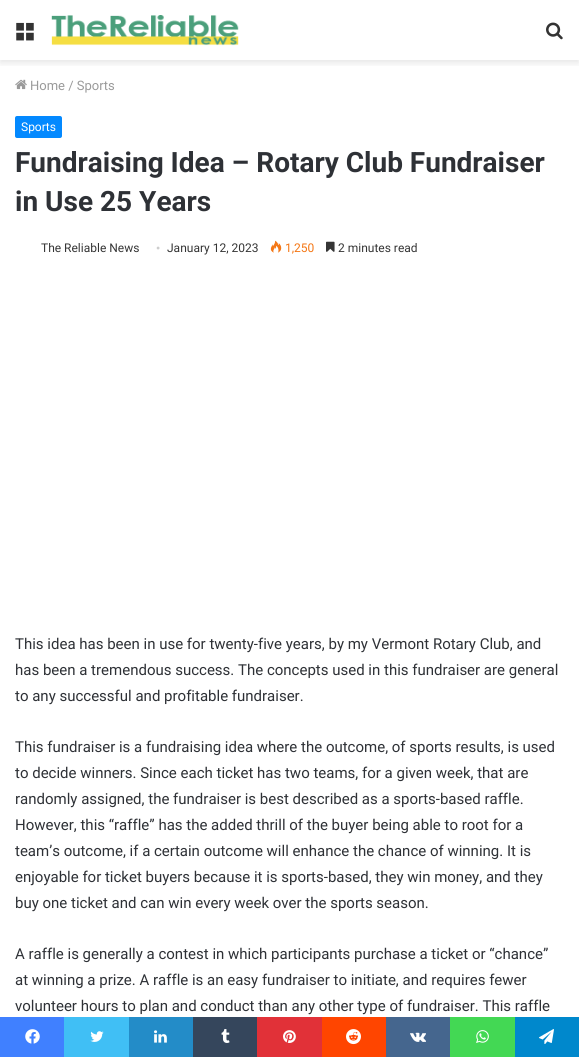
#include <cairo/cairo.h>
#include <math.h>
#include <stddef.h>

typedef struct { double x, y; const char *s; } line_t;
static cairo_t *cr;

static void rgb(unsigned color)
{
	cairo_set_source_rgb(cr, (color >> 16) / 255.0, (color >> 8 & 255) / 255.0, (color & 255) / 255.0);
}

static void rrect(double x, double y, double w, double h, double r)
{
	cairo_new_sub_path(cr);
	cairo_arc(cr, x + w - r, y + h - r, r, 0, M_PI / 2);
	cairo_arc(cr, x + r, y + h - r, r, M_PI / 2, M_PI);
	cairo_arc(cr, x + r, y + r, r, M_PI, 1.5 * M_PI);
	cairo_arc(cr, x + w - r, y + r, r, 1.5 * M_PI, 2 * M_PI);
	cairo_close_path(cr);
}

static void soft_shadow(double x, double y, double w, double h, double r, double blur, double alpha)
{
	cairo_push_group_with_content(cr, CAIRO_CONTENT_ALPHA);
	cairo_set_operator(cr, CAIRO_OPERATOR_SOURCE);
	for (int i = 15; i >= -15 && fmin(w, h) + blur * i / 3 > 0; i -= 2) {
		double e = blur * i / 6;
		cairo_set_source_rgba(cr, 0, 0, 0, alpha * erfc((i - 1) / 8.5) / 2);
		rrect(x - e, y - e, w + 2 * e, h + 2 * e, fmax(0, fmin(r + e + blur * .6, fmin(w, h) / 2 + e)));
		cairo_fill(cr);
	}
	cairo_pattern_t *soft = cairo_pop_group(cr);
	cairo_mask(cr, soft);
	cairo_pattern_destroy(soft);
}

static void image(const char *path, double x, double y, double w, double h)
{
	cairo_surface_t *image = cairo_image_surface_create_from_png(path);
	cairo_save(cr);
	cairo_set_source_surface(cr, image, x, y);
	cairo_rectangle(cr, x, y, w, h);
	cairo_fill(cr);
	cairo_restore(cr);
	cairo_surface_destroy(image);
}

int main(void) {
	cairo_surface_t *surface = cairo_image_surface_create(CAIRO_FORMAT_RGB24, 579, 1057);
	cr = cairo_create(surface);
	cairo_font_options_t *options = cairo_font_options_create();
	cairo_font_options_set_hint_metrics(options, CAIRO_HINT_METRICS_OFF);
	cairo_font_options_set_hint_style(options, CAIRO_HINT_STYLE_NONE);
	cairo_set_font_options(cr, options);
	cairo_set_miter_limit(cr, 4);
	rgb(0xffffff);
	cairo_paint(cr);
	cairo_save(cr);
	cairo_rectangle(cr, 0, 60, 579, 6);
	cairo_clip(cr);
	rgb(0x000000);
	soft_shadow(0, 3, 579, 60, 0, 3.5, 0.1);
	cairo_restore(cr);
	image("img/1.png", 16, 22, 18, 19);
	image("img/2.png", 51, 15, 188, 31);
	image("img/3.png", 546, 22, 17, 18);
	image("img/4.png", 15, 79, 12, 11);
	rgb(0x0389ff);
	rrect(15, 116, 47, 22, 2);
	cairo_fill(cr);
	image("img/5.png", 270, 240, 12, 13);
	image("img/6.png", 326, 241, 9, 11);
	rgb(0x4080ff);
	cairo_rectangle(cr, 0, 1017, 64, 40);
	cairo_fill(cr);
	image("img/7.png", 25, 1029, 15, 15);
	rgb(0x40bff5);
	cairo_rectangle(cr, 64, 1017, 65, 40);
	cairo_fill(cr);
	image("img/8.png", 90, 1031, 14, 11);
	rgb(0x238cc8);
	cairo_rectangle(cr, 129, 1017, 64, 40);
	cairo_fill(cr);
	image("img/9.png", 154, 1030, 13, 13);
	rgb(0x35465c);
	cairo_rectangle(cr, 193, 1017, 64, 40);
	cairo_fill(cr);
	image("img/10.png", 221, 1029, 9, 14);
	rgb(0xe13138);
	cairo_rectangle(cr, 257, 1017, 65, 40);
	cairo_fill(cr);
	image("img/11.png", 283, 1030, 13, 13);
	rgb(0xff4500);
	cairo_rectangle(cr, 322, 1017, 64, 40);
	cairo_fill(cr);
	image("img/12.png", 346, 1029, 15, 16);
	rgb(0x45668e);
	cairo_rectangle(cr, 386, 1017, 64, 40);
	cairo_fill(cr);
	image("img/13.png", 410, 1032, 16, 10);
	rgb(0x43d854);
	cairo_rectangle(cr, 450, 1017, 65, 40);
	cairo_fill(cr);
	image("img/14.png", 476, 1030, 13, 13);
	rgb(0x0088cc);
	cairo_rectangle(cr, 515, 1017, 64, 40);
	cairo_fill(cr);
	image("img/15.png", 539, 1029, 15, 15);
	cairo_select_font_face(cr, "Roboto", CAIRO_FONT_SLANT_NORMAL, CAIRO_FONT_WEIGHT_NORMAL);
	cairo_set_font_size(cr, 13);
	rgb(0x9a9a9a);
	cairo_move_to(cr, 30, 90);
	cairo_show_text(cr, "Home / Sports");
	cairo_set_font_size(cr, 12);
	rgb(0xffffff);
	cairo_move_to(cr, 21, 131);
	cairo_show_text(cr, "Sports");
	cairo_select_font_face(cr, "Roboto", CAIRO_FONT_SLANT_NORMAL, CAIRO_FONT_WEIGHT_BOLD);
	cairo_set_font_size(cr, 28);
	rgb(0x2e3136);
	cairo_move_to(cr, 15, 172);
	cairo_show_text(cr, "Fundraising Idea – Rotary Club Fundraiser");
	cairo_move_to(cr, 15, 211);
	cairo_show_text(cr, "in Use 25 Years");
	cairo_select_font_face(cr, "Roboto", CAIRO_FONT_SLANT_NORMAL, CAIRO_FONT_WEIGHT_NORMAL);
	cairo_set_font_size(cr, 12);
	rgb(0x353535);
	cairo_move_to(cr, 41, 252);
	cairo_show_text(cr, "The Reliable News");
	cairo_select_font_face(cr, "Liberation Serif", CAIRO_FONT_SLANT_NORMAL, CAIRO_FONT_WEIGHT_NORMAL);
	rgb(0xcdcdcd);
	cairo_move_to(cr, 156, 252);
	cairo_show_text(cr, "•");
	cairo_select_font_face(cr, "Roboto", CAIRO_FONT_SLANT_NORMAL, CAIRO_FONT_WEIGHT_NORMAL);
	rgb(0x353535);
	cairo_move_to(cr, 167, 252);
	cairo_show_text(cr, "January 12, 2023");
	rgb(0xf47614);
	cairo_move_to(cr, 285, 252);
	cairo_show_text(cr, "1,250");
	rgb(0x353535);
	cairo_move_to(cr, 338, 252);
	cairo_show_text(cr, "2 minutes read");
	cairo_set_font_size(cr, 15);
	rgb(0x2e3136);
	{
		static const line_t items[] = {
			{15, 649, "This idea has been in use for twenty-five years, by my Vermont Rotary Club, and"},
			{15, 675, "has been a tremendous success. The concepts used in this fundraiser are general"},
			{15, 701, "to any successful and profitable fundraiser."},
			{15, 752, "This fundraiser is a fundraising idea where the outcome, of sports results, is used"},
			{15, 778, "to decide winners. Since each ticket has two teams, for a given week, that are"},
			{15, 804, "randomly assigned, the fundraiser is best described as a sports-based raffle."},
			{15, 830, "However, this “raffle” has the added thrill of the buyer being able to root for a"},
			{15, 856, "team’s outcome, if a certain outcome will enhance the chance of winning. It is"},
			{15, 882, "enjoyable for ticket buyers because it is sports-based, they win money, and they"},
			{15, 908, "buy one ticket and can win every week over the sports season."},
			{15, 959, "A raffle is generally a contest in which participants purchase a ticket or “chance”"},
			{15, 985, "at winning a prize. A raffle is an easy fundraiser to initiate, and requires fewer"},
			{15, 1011, "volunteer hours to plan and conduct than any other type of fundraiser. This raffle"},
		};
		for (size_t i = 0; i < sizeof items / sizeof *items; i++) {
			cairo_move_to(cr, items[i].x, items[i].y);
			cairo_show_text(cr, items[i].s);
		}
	}
	cairo_surface_write_to_png(surface, "page.png");
	cairo_font_options_destroy(options);
	cairo_destroy(cr);
	cairo_surface_destroy(surface);
	return 0;
}
